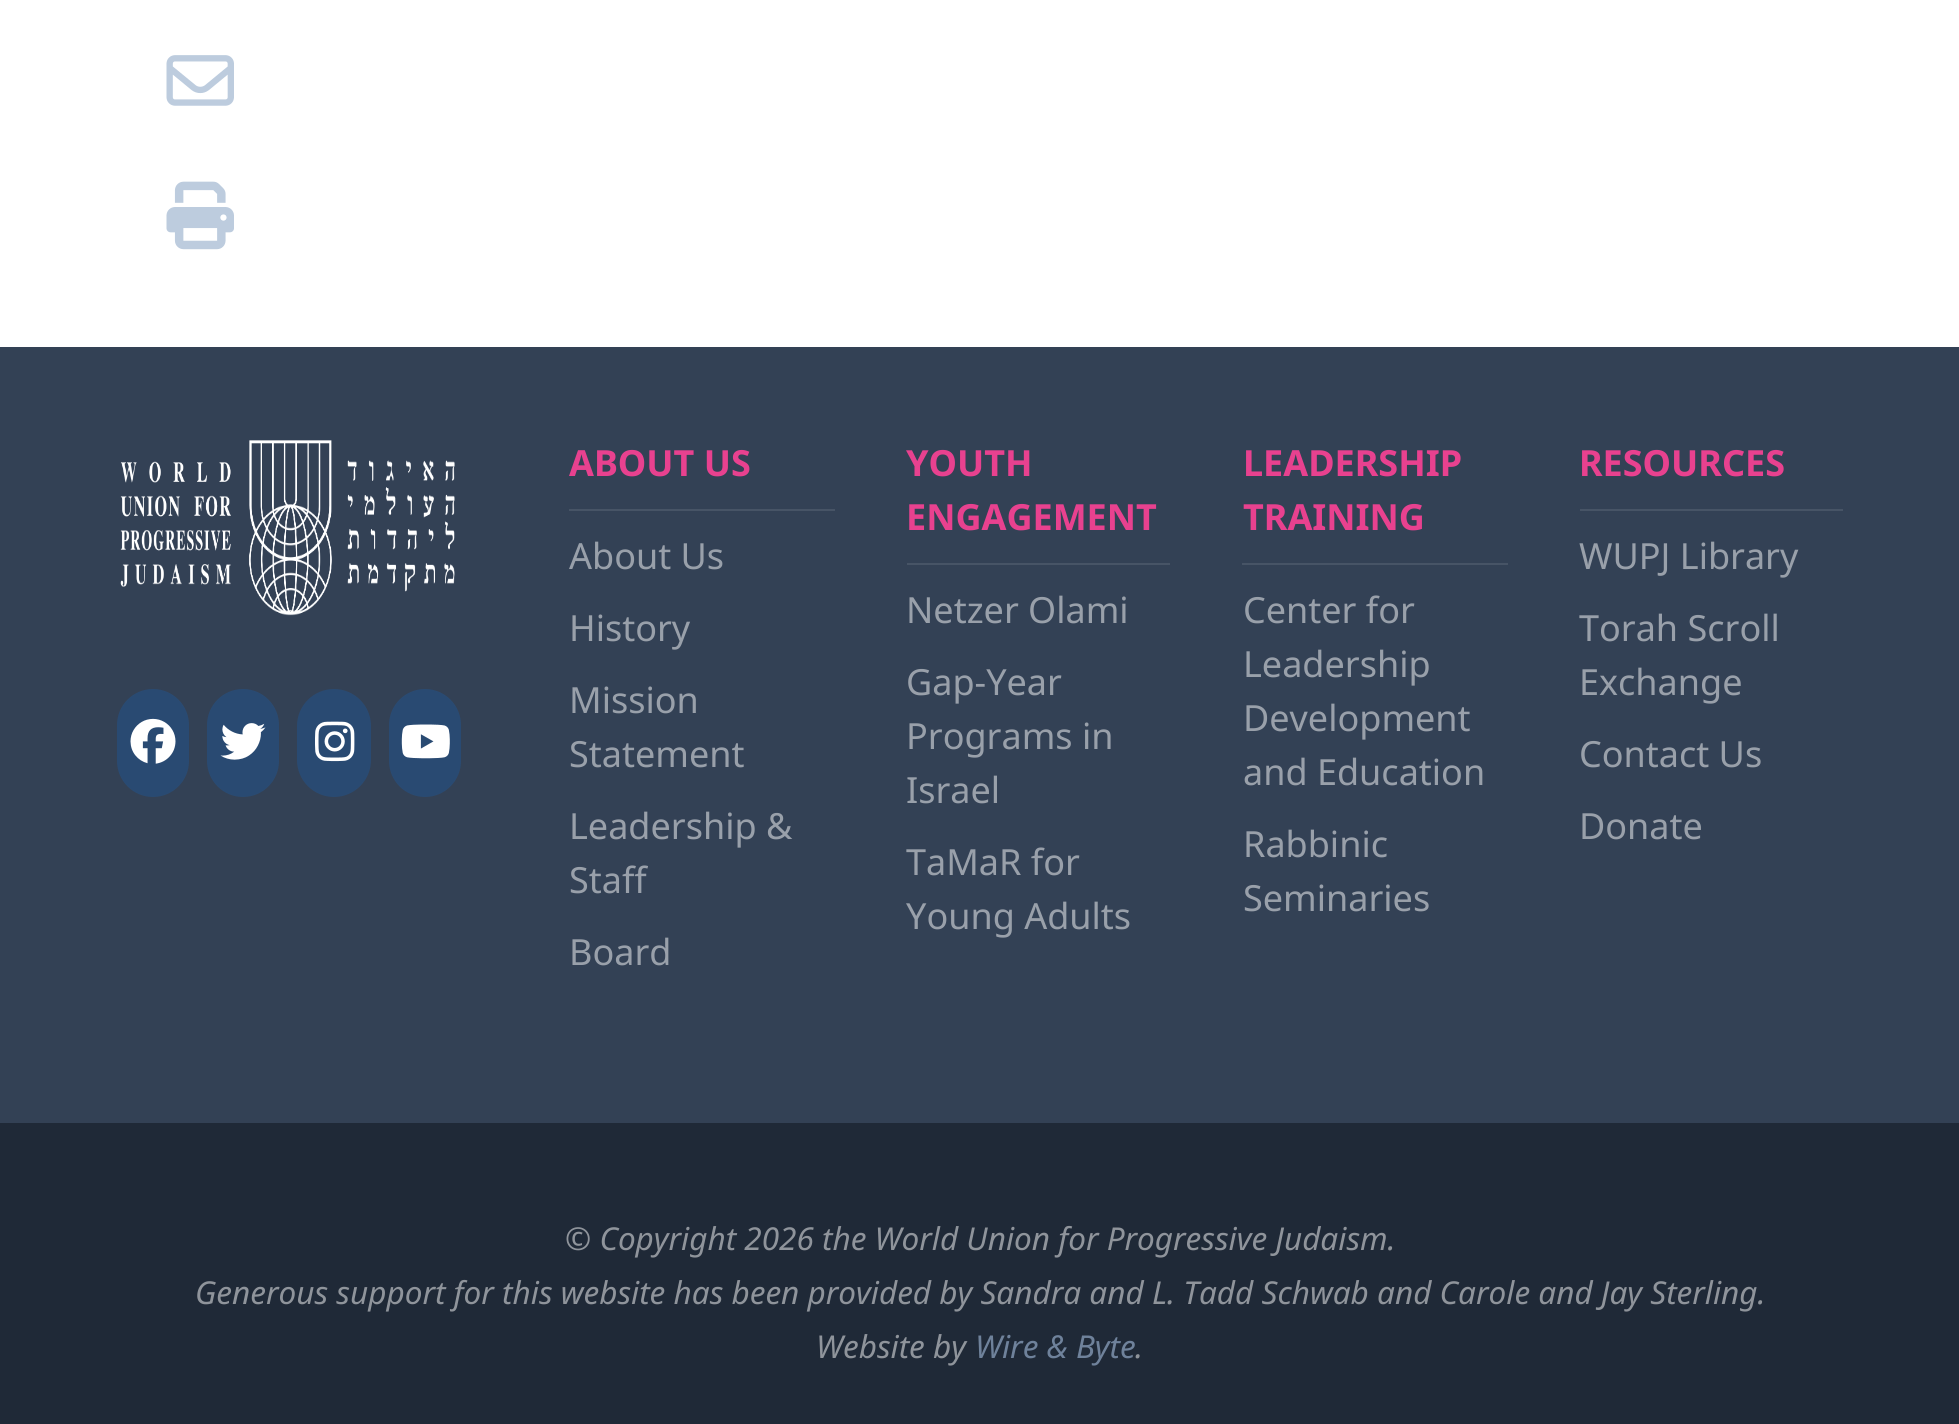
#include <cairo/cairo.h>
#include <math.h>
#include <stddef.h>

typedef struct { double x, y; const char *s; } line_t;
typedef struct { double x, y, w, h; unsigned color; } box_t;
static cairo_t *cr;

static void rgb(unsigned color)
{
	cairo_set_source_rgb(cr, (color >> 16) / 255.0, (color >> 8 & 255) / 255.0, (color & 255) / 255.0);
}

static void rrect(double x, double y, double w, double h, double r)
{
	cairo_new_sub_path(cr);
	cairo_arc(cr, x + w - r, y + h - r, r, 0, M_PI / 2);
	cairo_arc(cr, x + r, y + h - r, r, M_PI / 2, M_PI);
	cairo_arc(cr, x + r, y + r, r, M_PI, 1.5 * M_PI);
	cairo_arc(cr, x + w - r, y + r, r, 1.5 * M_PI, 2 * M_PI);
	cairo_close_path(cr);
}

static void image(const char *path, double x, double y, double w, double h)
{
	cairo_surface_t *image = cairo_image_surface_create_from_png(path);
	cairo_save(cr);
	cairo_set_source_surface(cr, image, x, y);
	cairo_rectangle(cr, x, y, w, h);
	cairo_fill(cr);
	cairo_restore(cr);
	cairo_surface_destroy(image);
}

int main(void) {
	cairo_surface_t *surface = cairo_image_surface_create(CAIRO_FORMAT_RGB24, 1959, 1424);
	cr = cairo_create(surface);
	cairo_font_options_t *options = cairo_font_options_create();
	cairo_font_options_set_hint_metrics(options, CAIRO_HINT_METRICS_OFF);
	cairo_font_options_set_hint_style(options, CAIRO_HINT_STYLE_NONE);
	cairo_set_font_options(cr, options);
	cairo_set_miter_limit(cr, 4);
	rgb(0xffffff);
	cairo_paint(cr);
	image("img/1.png", 166, 55, 68, 51);
	image("img/2.png", 166, 181, 68, 69);
	rgb(0x334155);
	cairo_rectangle(cr, 0, 347, 1959, 776);
	cairo_fill(cr);
	image("img/3.png", 120, 440, 335, 176);
	cairo_set_source_rgba(cr, 0.125, 0.329, 0.565, 0.5);
	rrect(117, 689, 72, 108, 36);
	cairo_fill(cr);
	image("img/4.png", 130, 718, 46, 46);
	rrect(207, 689, 72, 108, 36);
	cairo_fill(cr);
	image("img/5.png", 220, 723, 46, 37);
	rrect(297, 689, 74, 108, 37);
	cairo_fill(cr);
	image("img/6.png", 315, 721, 40, 41);
	rrect(389, 689, 72, 108, 36);
	cairo_fill(cr);
	image("img/7.png", 401, 724, 49, 35);
	{
		static const box_t items[] = {
			{569, 509, 266, 2, 0x475466},
			{907, 563, 263, 2, 0x475466},
			{1242, 563, 266, 2, 0x475466},
			{1580, 509, 263, 2, 0x475466},
			{0, 1123, 1959, 301, 0x1f2937},
		};
		for (size_t i = 0; i < sizeof items / sizeof *items; i++) {
			rgb(items[i].color);
			cairo_rectangle(cr, items[i].x, items[i].y, items[i].w, items[i].h);
			cairo_fill(cr);
		}
	}
	cairo_select_font_face(cr, "Noto Sans", CAIRO_FONT_SLANT_NORMAL, CAIRO_FONT_WEIGHT_BOLD);
	cairo_set_font_size(cr, 36);
	rgb(0xe8418f);
	cairo_move_to(cr, 569, 476);
	cairo_show_text(cr, "ABOUT US");
	cairo_select_font_face(cr, "Noto Sans", CAIRO_FONT_SLANT_NORMAL, CAIRO_FONT_WEIGHT_NORMAL);
	rgb(0x99a0aa);
	{
		static const line_t items[] = {
			{569, 569, "About Us"},
			{569, 641, "History"},
			{569, 713, "Mission"},
			{569, 767, "Statement"},
			{569, 839, "Leadership &"},
			{569, 893, "Staff"},
			{569, 965, "Board"},
		};
		for (size_t i = 0; i < sizeof items / sizeof *items; i++) {
			cairo_move_to(cr, items[i].x, items[i].y);
			cairo_show_text(cr, items[i].s);
		}
	}
	cairo_select_font_face(cr, "Noto Sans", CAIRO_FONT_SLANT_NORMAL, CAIRO_FONT_WEIGHT_BOLD);
	rgb(0xe8418f);
	cairo_move_to(cr, 906, 476);
	cairo_show_text(cr, "YOUTH");
	cairo_move_to(cr, 906, 530);
	cairo_show_text(cr, "ENGAGEMENT");
	cairo_select_font_face(cr, "Noto Sans", CAIRO_FONT_SLANT_NORMAL, CAIRO_FONT_WEIGHT_NORMAL);
	rgb(0x99a0aa);
	{
		static const line_t items[] = {
			{906, 623, "Netzer Olami"},
			{906, 695, "Gap-Year"},
			{906, 749, "Programs in"},
			{906, 803, "Israel"},
			{906, 875, "TaMaR for"},
			{906, 929, "Young Adults"},
		};
		for (size_t i = 0; i < sizeof items / sizeof *items; i++) {
			cairo_move_to(cr, items[i].x, items[i].y);
			cairo_show_text(cr, items[i].s);
		}
	}
	cairo_select_font_face(cr, "Noto Sans", CAIRO_FONT_SLANT_NORMAL, CAIRO_FONT_WEIGHT_BOLD);
	rgb(0xe8418f);
	cairo_move_to(cr, 1243, 476);
	cairo_show_text(cr, "LEADERSHIP");
	cairo_move_to(cr, 1243, 530);
	cairo_show_text(cr, "TRAINING");
	cairo_select_font_face(cr, "Noto Sans", CAIRO_FONT_SLANT_NORMAL, CAIRO_FONT_WEIGHT_NORMAL);
	rgb(0x99a0aa);
	{
		static const line_t items[] = {
			{1243, 623, "Center for"},
			{1243, 677, "Leadership"},
			{1243, 731, "Development"},
			{1243, 785, "and Education"},
			{1243, 857, "Rabbinic"},
			{1243, 911, "Seminaries"},
		};
		for (size_t i = 0; i < sizeof items / sizeof *items; i++) {
			cairo_move_to(cr, items[i].x, items[i].y);
			cairo_show_text(cr, items[i].s);
		}
	}
	cairo_select_font_face(cr, "Noto Sans", CAIRO_FONT_SLANT_NORMAL, CAIRO_FONT_WEIGHT_BOLD);
	rgb(0xe8418f);
	cairo_move_to(cr, 1579, 476);
	cairo_show_text(cr, "RESOURCES");
	cairo_select_font_face(cr, "Noto Sans", CAIRO_FONT_SLANT_NORMAL, CAIRO_FONT_WEIGHT_NORMAL);
	rgb(0x99a0aa);
	{
		static const line_t items[] = {
			{1579, 569, "WUPJ Library"},
			{1579, 641, "Torah Scroll"},
			{1579, 695, "Exchange"},
			{1579, 767, "Contact Us"},
			{1579, 839, "Donate"},
		};
		for (size_t i = 0; i < sizeof items / sizeof *items; i++) {
			cairo_move_to(cr, items[i].x, items[i].y);
			cairo_show_text(cr, items[i].s);
		}
	}
	cairo_select_font_face(cr, "Noto Sans", CAIRO_FONT_SLANT_ITALIC, CAIRO_FONT_WEIGHT_NORMAL);
	cairo_set_font_size(cr, 31.5);
	rgb(0x8f949b);
	{
		static const line_t items[] = {
			{565, 1250, "© Copyright 2026 the World Union for Progressive Judaism."},
			{195, 1304, "Generous support for this website has been provided by Sandra and L. Tadd Schwab and Carole and Jay Sterling."},
			{816, 1358, "Website by"},
		};
		for (size_t i = 0; i < sizeof items / sizeof *items; i++) {
			cairo_move_to(cr, items[i].x, items[i].y);
			cairo_show_text(cr, items[i].s);
		}
	}
	rgb(0x6f829b);
	cairo_move_to(cr, 975, 1358);
	cairo_show_text(cr, "Wire & Byte");
	rgb(0x8f949b);
	cairo_move_to(cr, 1135, 1358);
	cairo_show_text(cr, ".");
	cairo_surface_write_to_png(surface, "page.png");
	cairo_font_options_destroy(options);
	cairo_destroy(cr);
	cairo_surface_destroy(surface);
	return 0;
}
